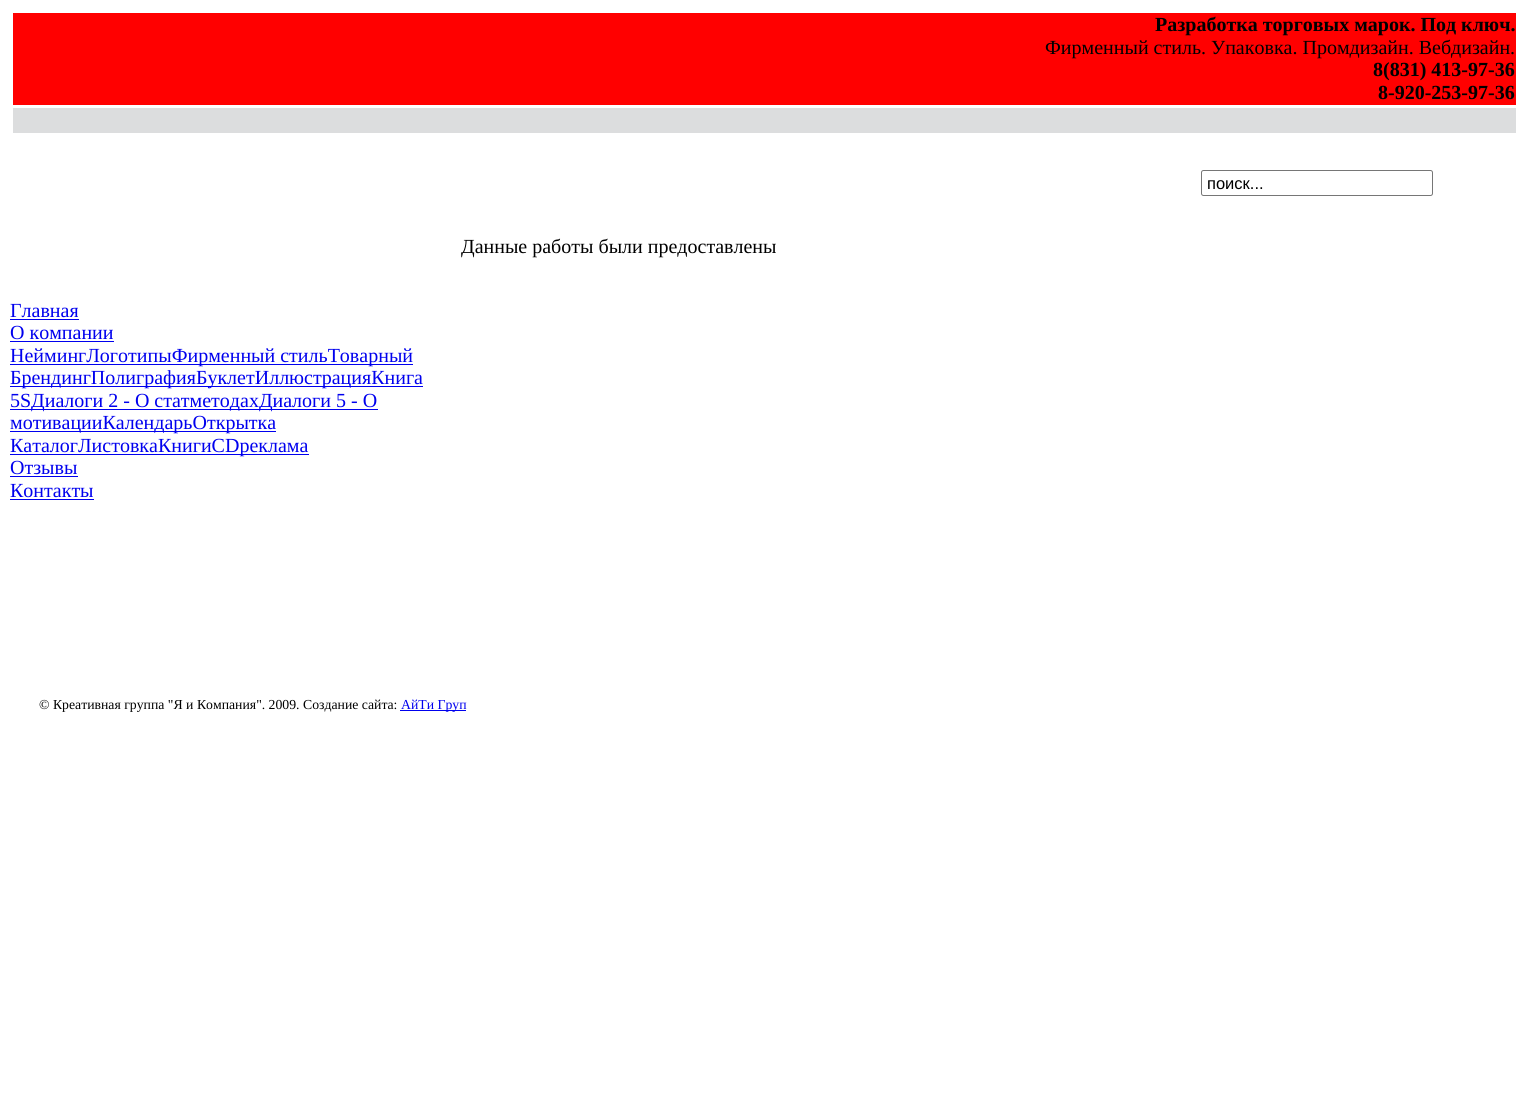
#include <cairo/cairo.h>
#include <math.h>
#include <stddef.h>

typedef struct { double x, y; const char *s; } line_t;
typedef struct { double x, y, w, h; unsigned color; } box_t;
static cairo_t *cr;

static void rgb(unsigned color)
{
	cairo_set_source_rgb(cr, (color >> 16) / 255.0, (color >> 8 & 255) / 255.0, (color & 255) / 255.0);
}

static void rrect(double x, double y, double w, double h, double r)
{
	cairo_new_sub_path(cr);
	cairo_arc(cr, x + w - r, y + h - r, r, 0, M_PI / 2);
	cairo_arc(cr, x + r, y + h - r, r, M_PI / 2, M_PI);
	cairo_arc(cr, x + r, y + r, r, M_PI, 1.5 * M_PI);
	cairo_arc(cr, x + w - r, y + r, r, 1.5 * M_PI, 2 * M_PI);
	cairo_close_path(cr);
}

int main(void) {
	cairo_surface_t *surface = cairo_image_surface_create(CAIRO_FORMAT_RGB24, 1528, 1100);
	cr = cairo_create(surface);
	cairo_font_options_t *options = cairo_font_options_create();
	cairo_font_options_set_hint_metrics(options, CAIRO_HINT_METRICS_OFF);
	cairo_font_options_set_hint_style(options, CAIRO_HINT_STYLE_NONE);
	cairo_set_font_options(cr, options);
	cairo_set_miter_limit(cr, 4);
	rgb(0xffffff);
	cairo_paint(cr);
	rgb(0xff0000);
	cairo_rectangle(cr, 13, 13, 1503, 92);
	cairo_fill(cr);
	rgb(0xdcddde);
	cairo_rectangle(cr, 13, 108, 1503, 25);
	cairo_fill(cr);
	rrect(1201.5, 170.5, 231, 25, 2);
	rgb(0x767676);
	cairo_set_line_width(cr, 1);
	cairo_stroke(cr);
	{
		static const box_t items[] = {
			{10, 319, 69, 1, 0x0000ee},
			{10, 341, 104, 1, 0x0000ee},
			{10, 364, 403, 1, 0x0000ee},
			{10, 386, 413, 1, 0x0000ee},
			{10, 409, 368, 1, 0x0000ee},
			{10, 431, 266, 1, 0x0000ee},
			{10, 454, 299, 1, 0x0000ee},
			{10, 476, 68, 1, 0x0000ee},
			{10, 499, 84, 1, 0x0000ee},
			{400, 710, 66, 1, 0x0000ee},
		};
		for (size_t i = 0; i < sizeof items / sizeof *items; i++) {
			rgb(items[i].color);
			cairo_rectangle(cr, items[i].x, items[i].y, items[i].w, items[i].h);
			cairo_fill(cr);
		}
	}
	cairo_select_font_face(cr, "Liberation Serif", CAIRO_FONT_SLANT_NORMAL, CAIRO_FONT_WEIGHT_BOLD);
	cairo_set_font_size(cr, 20);
	rgb(0x000000);
	cairo_move_to(cr, 1155, 31);
	cairo_show_text(cr, "Разработка торговых марок. Под ключ.");
	cairo_select_font_face(cr, "Liberation Serif", CAIRO_FONT_SLANT_NORMAL, CAIRO_FONT_WEIGHT_NORMAL);
	cairo_move_to(cr, 1045, 54);
	cairo_show_text(cr, "Фирменный стиль. Упаковка. Промдизайн. Вебдизайн.");
	cairo_select_font_face(cr, "Liberation Serif", CAIRO_FONT_SLANT_NORMAL, CAIRO_FONT_WEIGHT_BOLD);
	cairo_move_to(cr, 1373, 76);
	cairo_show_text(cr, "8(831) 413-97-36");
	cairo_move_to(cr, 1378, 99);
	cairo_show_text(cr, "8-920-253-97-36");
	cairo_select_font_face(cr, "Liberation Sans", CAIRO_FONT_SLANT_NORMAL, CAIRO_FONT_WEIGHT_NORMAL);
	cairo_set_font_size(cr, 16.5);
	cairo_move_to(cr, 1207, 189);
	cairo_show_text(cr, "поиск...");
	cairo_select_font_face(cr, "Liberation Serif", CAIRO_FONT_SLANT_NORMAL, CAIRO_FONT_WEIGHT_NORMAL);
	cairo_set_font_size(cr, 20);
	cairo_move_to(cr, 461, 253);
	cairo_show_text(cr, "Данные работы были предоставлены");
	rgb(0x0000ee);
	{
		static const line_t items[] = {
			{10, 317, "Главная"},
			{10, 339, "О компании"},
			{10, 362, "НеймингЛоготипыФирменный стильТоварный"},
			{10, 384, "БрендингПолиграфияБуклетИллюстрацияКнига"},
			{10, 407, "5SДиалоги 2 - О статметодахДиалоги 5 - О"},
			{10, 429, "мотивацииКалендарьОткрытка"},
			{10, 452, "КаталогЛистовкаКнигиCDреклама"},
			{10, 474, "Отзывы"},
			{10, 497, "Контакты"},
		};
		for (size_t i = 0; i < sizeof items / sizeof *items; i++) {
			cairo_move_to(cr, items[i].x, items[i].y);
			cairo_show_text(cr, items[i].s);
		}
	}
	cairo_set_font_size(cr, 13.75);
	rgb(0x000000);
	cairo_move_to(cr, 39, 709);
	cairo_show_text(cr, "© Креативная группа \"Я и Компания\". 2009. Создание сайта:");
	rgb(0x0000ee);
	cairo_move_to(cr, 401, 709);
	cairo_show_text(cr, "АйТи Груп");
	cairo_surface_write_to_png(surface, "page.png");
	cairo_font_options_destroy(options);
	cairo_destroy(cr);
	cairo_surface_destroy(surface);
	return 0;
}
